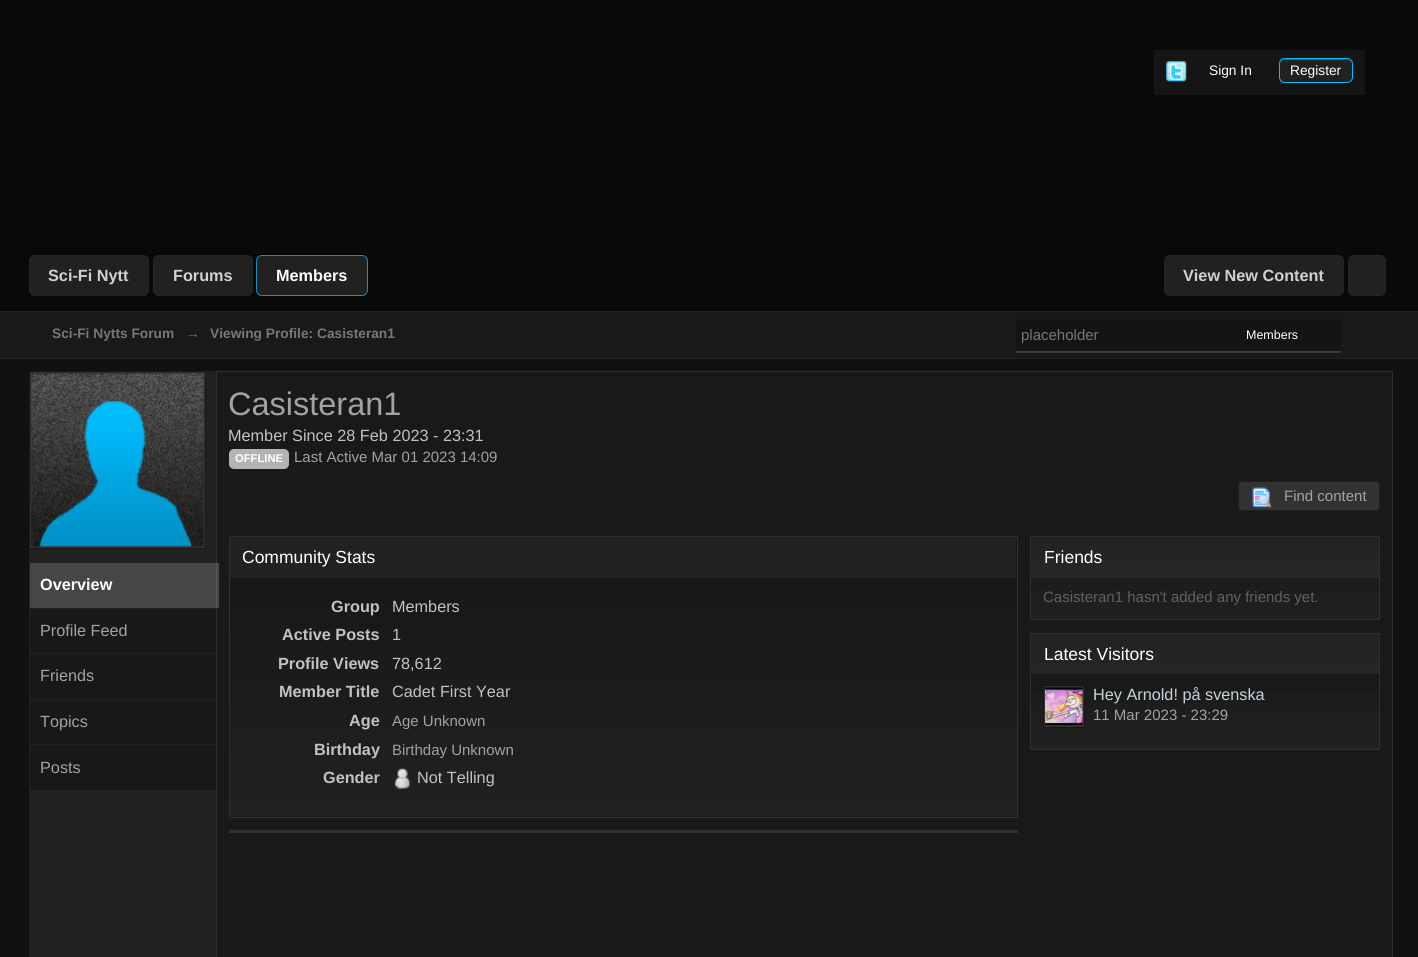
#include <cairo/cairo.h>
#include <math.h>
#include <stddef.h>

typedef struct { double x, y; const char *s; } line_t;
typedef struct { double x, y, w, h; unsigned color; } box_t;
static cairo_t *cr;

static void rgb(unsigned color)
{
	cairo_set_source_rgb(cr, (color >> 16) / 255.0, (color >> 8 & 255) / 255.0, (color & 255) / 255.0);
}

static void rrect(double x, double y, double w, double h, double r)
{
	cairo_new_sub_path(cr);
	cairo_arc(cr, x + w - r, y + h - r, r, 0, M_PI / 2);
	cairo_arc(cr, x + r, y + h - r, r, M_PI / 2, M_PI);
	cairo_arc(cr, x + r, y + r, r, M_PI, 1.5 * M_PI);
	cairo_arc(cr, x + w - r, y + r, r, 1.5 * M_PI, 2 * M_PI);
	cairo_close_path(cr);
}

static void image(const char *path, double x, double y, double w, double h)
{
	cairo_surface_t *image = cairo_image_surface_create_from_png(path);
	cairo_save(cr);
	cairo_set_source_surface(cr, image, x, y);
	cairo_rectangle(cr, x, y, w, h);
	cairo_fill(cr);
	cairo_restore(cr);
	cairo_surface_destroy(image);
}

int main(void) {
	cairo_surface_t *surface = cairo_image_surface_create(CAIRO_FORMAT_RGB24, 1418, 957);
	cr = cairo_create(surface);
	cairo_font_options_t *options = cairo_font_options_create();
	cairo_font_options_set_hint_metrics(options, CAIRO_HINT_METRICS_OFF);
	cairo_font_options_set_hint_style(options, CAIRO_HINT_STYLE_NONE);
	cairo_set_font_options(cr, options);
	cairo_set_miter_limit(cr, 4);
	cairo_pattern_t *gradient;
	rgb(0x090909);
	cairo_paint(cr);
	rgb(0x151515);
	cairo_rectangle(cr, 1154, 50, 211, 45);
	cairo_fill(cr);
	image("img/1.png", 1166, 61, 21, 21);
	rgb(0x212121);
	rrect(1279, 58, 74, 25, 6);
	cairo_fill(cr);
	rgb(0x4d4d4d);
	cairo_new_path(cr);
	cairo_move_to(cr, 1285, 60);
	cairo_line_to(cr, 1346, 60);
	cairo_curve_to(cr, 1349, 60, 1351, 62, 1351, 65);
	cairo_curve_to(cr, 1351, 57, 1342, 59, 1336, 59);
	cairo_line_to(cr, 1295, 59);
	cairo_curve_to(cr, 1289, 59, 1280, 57, 1280, 65);
	cairo_curve_to(cr, 1280, 62, 1282, 60, 1285, 60);
	cairo_close_path(cr);
	cairo_fill(cr);
	rrect(1279.5, 58.5, 73, 24, 5.5);
	rgb(0x00beff);
	cairo_set_line_width(cr, 1);
	cairo_stroke(cr);
	rgb(0x212121);
	rrect(29.5, 255.5, 119, 40, 5.5);
	cairo_fill_preserve(cr);
	rgb(0x252525);
	cairo_stroke(cr);
	rgb(0x212121);
	rrect(153.5, 255.5, 99, 40, 5.5);
	cairo_fill_preserve(cr);
	rgb(0x252525);
	cairo_stroke(cr);
	rgb(0x212121);
	rrect(256.5, 255.5, 111, 40, 5.5);
	cairo_fill_preserve(cr);
	rgb(0x1690bd);
	cairo_stroke(cr);
	rgb(0x212121);
	rrect(1164.5, 255.5, 179, 40, 5.5);
	cairo_fill_preserve(cr);
	rgb(0x252525);
	cairo_stroke(cr);
	rgb(0x212121);
	rrect(1348.5, 255.5, 37, 40, 5.5);
	cairo_fill_preserve(cr);
	rgb(0x252525);
	cairo_stroke(cr);
	{
		static const box_t items[] = {
			{0, 312, 1418, 46, 0x191919},
			{0, 311, 1418, 1, 0x212121},
			{0, 358, 1418, 1, 0x212121},
		};
		for (size_t i = 0; i < sizeof items / sizeof *items; i++) {
			rgb(items[i].color);
			cairo_rectangle(cr, items[i].x, items[i].y, items[i].w, items[i].h);
			cairo_fill(cr);
		}
	}
	rgb(0x3c3c3c);
	cairo_new_path(cr);
	cairo_move_to(cr, 1016, 320);
	cairo_line_to(cr, 1016, 353);
	cairo_line_to(cr, 1341, 353);
	cairo_line_to(cr, 1341, 351);
	cairo_line_to(cr, 1016, 351);
	cairo_close_path(cr);
	cairo_fill(cr);
	{
		static const box_t items[] = {
			{1016, 319, 325, 32, 0x141414},
			{0, 359, 1418, 598, 0x111111},
			{29, 371, 187, 586, 0x212121},
		};
		for (size_t i = 0; i < sizeof items / sizeof *items; i++) {
			rgb(items[i].color);
			cairo_rectangle(cr, items[i].x, items[i].y, items[i].w, items[i].h);
			cairo_fill(cr);
		}
	}
	rgb(0x323232);
	cairo_rectangle(cr, 29.5, 371.5, 176, 177);
	cairo_fill_preserve(cr);
	rgb(0x181818);
	cairo_stroke(cr);
	image("img/2.png", 31, 373, 173, 174);
	cairo_rectangle(cr, 30, 563, 186, 45);
	cairo_fill(cr);
	rgb(0x191919);
	cairo_rectangle(cr, 216.5, 371.5, 1176, 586);
	cairo_fill_preserve(cr);
	rgb(0x303030);
	cairo_stroke(cr);
	cairo_set_source_rgba(cr, 1, 1, 1, 0.2);
	cairo_rectangle(cr, 30, 563, 189, 45);
	cairo_fill(cr);
	rgb(0x212121);
	cairo_rectangle(cr, 219, 563, 1, 45);
	cairo_fill(cr);
	rgb(0x181818);
	cairo_rectangle(cr, 30, 609, 186, 44);
	cairo_fill(cr);
	cairo_rectangle(cr, 30, 654, 186, 45);
	cairo_fill(cr);
	cairo_rectangle(cr, 30, 700, 186, 44);
	cairo_fill(cr);
	cairo_rectangle(cr, 30, 745, 186, 45);
	cairo_fill(cr);
	rgb(0xb3b3b3);
	rrect(229, 449, 60, 20, 5);
	cairo_fill(cr);
	rgb(0x323232);
	rrect(1238.5, 481.5, 141, 29, 3.5);
	cairo_fill_preserve(cr);
	rgb(0x212121);
	cairo_stroke(cr);
	image("img/3.png", 1252, 487, 20, 21);
	gradient = cairo_pattern_create_linear(230, 259, 230, 538);
	cairo_pattern_add_color_stop_rgba(gradient, 0, 0.086, 0.086, 0.086, 1);
	cairo_pattern_add_color_stop_rgba(gradient, 1, 0.129, 0.129, 0.129, 1);
	cairo_set_source(cr, gradient);
	cairo_pattern_destroy(gradient);
	cairo_rectangle(cr, 229, 537, 789, 1);
	cairo_fill(cr);
	gradient = cairo_pattern_create_linear(230, 538, 230, 816);
	cairo_pattern_add_color_stop_rgba(gradient, 0, 0.086, 0.086, 0.086, 1);
	cairo_pattern_add_color_stop_rgba(gradient, 1, 0.129, 0.129, 0.129, 1);
	cairo_set_source(cr, gradient);
	cairo_pattern_destroy(gradient);
	cairo_rectangle(cr, 230, 538, 787, 278);
	cairo_fill(cr);
	gradient = cairo_pattern_create_linear(230, 816, 230, 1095);
	cairo_pattern_add_color_stop_rgba(gradient, 0, 0.086, 0.086, 0.086, 1);
	cairo_pattern_add_color_stop_rgba(gradient, 1, 0.129, 0.129, 0.129, 1);
	cairo_set_source(cr, gradient);
	cairo_pattern_destroy(gradient);
	cairo_rectangle(cr, 229, 816, 789, 1);
	cairo_fill(cr);
	cairo_rectangle(cr, 229.5, 536.5, 788, 281);
	rgb(0x303030);
	cairo_stroke(cr);
	rgb(0x222222);
	cairo_rectangle(cr, 230, 538, 786, 40);
	cairo_fill(cr);
	image("img/4.png", 394, 768, 17, 21);
	rgb(0x303030);
	cairo_rectangle(cr, 229, 830, 789, 3);
	cairo_fill(cr);
	gradient = cairo_pattern_create_linear(1031, 456, 1031, 538);
	cairo_pattern_add_color_stop_rgba(gradient, 0, 0.086, 0.086, 0.086, 1);
	cairo_pattern_add_color_stop_rgba(gradient, 1, 0.129, 0.129, 0.129, 1);
	cairo_set_source(cr, gradient);
	cairo_pattern_destroy(gradient);
	cairo_rectangle(cr, 1030, 537, 350, 1);
	cairo_fill(cr);
	gradient = cairo_pattern_create_linear(1031, 538, 1031, 619);
	cairo_pattern_add_color_stop_rgba(gradient, 0, 0.086, 0.086, 0.086, 1);
	cairo_pattern_add_color_stop_rgba(gradient, 1, 0.129, 0.129, 0.129, 1);
	cairo_set_source(cr, gradient);
	cairo_pattern_destroy(gradient);
	cairo_rectangle(cr, 1031, 578, 348, 41);
	cairo_fill(cr);
	gradient = cairo_pattern_create_linear(1031, 538, 1031, 619);
	cairo_pattern_add_color_stop_rgba(gradient, 0, 0.133, 0.133, 0.133, 1);
	cairo_pattern_add_color_stop_rgba(gradient, 1, 0.173, 0.173, 0.173, 1);
	cairo_set_source(cr, gradient);
	cairo_pattern_destroy(gradient);
	cairo_rectangle(cr, 1031, 538, 348, 40);
	cairo_fill(cr);
	cairo_rectangle(cr, 1030.5, 536.5, 349, 83);
	rgb(0x303030);
	cairo_stroke(cr);
	gradient = cairo_pattern_create_linear(1031, 634, 1031, 749);
	cairo_pattern_add_color_stop_rgba(gradient, 0, 0.086, 0.086, 0.086, 1);
	cairo_pattern_add_color_stop_rgba(gradient, 1, 0.129, 0.129, 0.129, 1);
	cairo_set_source(cr, gradient);
	cairo_pattern_destroy(gradient);
	cairo_rectangle(cr, 1031, 692, 348, 57);
	cairo_fill(cr);
	gradient = cairo_pattern_create_linear(1031, 634, 1031, 749);
	cairo_pattern_add_color_stop_rgba(gradient, 0, 0.133, 0.133, 0.133, 1);
	cairo_pattern_add_color_stop_rgba(gradient, 1, 0.173, 0.173, 0.173, 1);
	cairo_set_source(cr, gradient);
	cairo_pattern_destroy(gradient);
	cairo_rectangle(cr, 1031, 634, 348, 40);
	cairo_fill(cr);
	cairo_rectangle(cr, 1030.5, 633.5, 349, 116);
	rgb(0x303030);
	cairo_stroke(cr);
	rgb(0x323232);
	cairo_rectangle(cr, 1043.5, 685.5, 41, 42);
	cairo_fill_preserve(cr);
	rgb(0x181818);
	cairo_stroke(cr);
	image("img/5.png", 1045, 687, 38, 38);
	cairo_select_font_face(cr, "Liberation Sans", CAIRO_FONT_SLANT_NORMAL, CAIRO_FONT_WEIGHT_NORMAL);
	cairo_set_font_size(cr, 13.75);
	rgb(0xffffff);
	cairo_move_to(cr, 1209, 75);
	cairo_show_text(cr, "Sign In");
	cairo_move_to(cr, 1290, 75);
	cairo_show_text(cr, "Register");
	cairo_select_font_face(cr, "Liberation Sans", CAIRO_FONT_SLANT_NORMAL, CAIRO_FONT_WEIGHT_BOLD);
	cairo_set_font_size(cr, 16.25);
	rgb(0xd1d1d1);
	cairo_move_to(cr, 48, 281);
	cairo_show_text(cr, "Sci-Fi Nytt");
	cairo_move_to(cr, 173, 281);
	cairo_show_text(cr, "Forums");
	rgb(0xffffff);
	cairo_move_to(cr, 276, 281);
	cairo_show_text(cr, "Members");
	rgb(0xd1d1d1);
	cairo_move_to(cr, 1183, 281);
	cairo_show_text(cr, "View New Content");
	cairo_set_font_size(cr, 13.75);
	rgb(0x777777);
	{
		static const line_t items[] = {
			{52, 338, "Sci-Fi Nytts Forum"},
			{186, 338, "→"},
			{210, 338, "Viewing Profile: Casisteran1"},
		};
		for (size_t i = 0; i < sizeof items / sizeof *items; i++) {
			cairo_move_to(cr, items[i].x, items[i].y);
			cairo_show_text(cr, items[i].s);
		}
	}
	cairo_select_font_face(cr, "Liberation Sans", CAIRO_FONT_SLANT_NORMAL, CAIRO_FONT_WEIGHT_NORMAL);
	cairo_set_font_size(cr, 15);
	cairo_move_to(cr, 1021, 340);
	cairo_show_text(cr, "placeholder");
	cairo_set_font_size(cr, 12.5);
	rgb(0xffffff);
	cairo_move_to(cr, 1246, 339);
	cairo_show_text(cr, "Members");
	cairo_select_font_face(cr, "Liberation Sans", CAIRO_FONT_SLANT_NORMAL, CAIRO_FONT_WEIGHT_BOLD);
	cairo_set_font_size(cr, 16.25);
	cairo_move_to(cr, 40, 590);
	cairo_show_text(cr, "Overview");
	cairo_select_font_face(cr, "Liberation Sans", CAIRO_FONT_SLANT_NORMAL, CAIRO_FONT_WEIGHT_NORMAL);
	rgb(0xa2a2a2);
	{
		static const line_t items[] = {
			{40, 636, "Profile Feed"},
			{40, 681, "Friends"},
			{40, 727, "Topics"},
			{40, 773, "Posts"},
		};
		for (size_t i = 0; i < sizeof items / sizeof *items; i++) {
			cairo_move_to(cr, items[i].x, items[i].y);
			cairo_show_text(cr, items[i].s);
		}
	}
	cairo_set_font_size(cr, 32.5);
	cairo_move_to(cr, 228, 415);
	cairo_show_text(cr, "Casisteran1");
	cairo_set_font_size(cr, 16.25);
	rgb(0xc2c2c2);
	cairo_move_to(cr, 228, 441);
	cairo_show_text(cr, "Member Since 28 Feb 2023 - 23:31");
	cairo_select_font_face(cr, "Liberation Sans", CAIRO_FONT_SLANT_NORMAL, CAIRO_FONT_WEIGHT_BOLD);
	cairo_set_font_size(cr, 11.25);
	rgb(0xffffff);
	cairo_move_to(cr, 235, 462);
	cairo_show_text(cr, "OFFLINE");
	cairo_select_font_face(cr, "Liberation Sans", CAIRO_FONT_SLANT_NORMAL, CAIRO_FONT_WEIGHT_NORMAL);
	cairo_set_font_size(cr, 15);
	rgb(0xa2a2a2);
	cairo_move_to(cr, 294, 462);
	cairo_show_text(cr, "Last Active Mar 01 2023 14:09");
	cairo_move_to(cr, 1284, 501);
	cairo_show_text(cr, "Find content");
	cairo_set_font_size(cr, 17.5);
	rgb(0xffffff);
	cairo_move_to(cr, 242, 563);
	cairo_show_text(cr, "Community Stats");
	cairo_select_font_face(cr, "Liberation Sans", CAIRO_FONT_SLANT_NORMAL, CAIRO_FONT_WEIGHT_BOLD);
	cairo_set_font_size(cr, 16.25);
	rgb(0xc2c2c2);
	cairo_move_to(cr, 331, 612);
	cairo_show_text(cr, "Group");
	cairo_select_font_face(cr, "Liberation Sans", CAIRO_FONT_SLANT_NORMAL, CAIRO_FONT_WEIGHT_NORMAL);
	cairo_move_to(cr, 392, 612);
	cairo_show_text(cr, "Members");
	cairo_select_font_face(cr, "Liberation Sans", CAIRO_FONT_SLANT_NORMAL, CAIRO_FONT_WEIGHT_BOLD);
	cairo_move_to(cr, 282, 640);
	cairo_show_text(cr, "Active Posts");
	cairo_select_font_face(cr, "Liberation Sans", CAIRO_FONT_SLANT_NORMAL, CAIRO_FONT_WEIGHT_NORMAL);
	cairo_move_to(cr, 392, 640);
	cairo_show_text(cr, "1");
	cairo_select_font_face(cr, "Liberation Sans", CAIRO_FONT_SLANT_NORMAL, CAIRO_FONT_WEIGHT_BOLD);
	cairo_move_to(cr, 278, 669);
	cairo_show_text(cr, "Profile Views");
	cairo_select_font_face(cr, "Liberation Sans", CAIRO_FONT_SLANT_NORMAL, CAIRO_FONT_WEIGHT_NORMAL);
	cairo_move_to(cr, 392, 669);
	cairo_show_text(cr, "78,612");
	cairo_select_font_face(cr, "Liberation Sans", CAIRO_FONT_SLANT_NORMAL, CAIRO_FONT_WEIGHT_BOLD);
	cairo_move_to(cr, 279, 697);
	cairo_show_text(cr, "Member Title");
	cairo_select_font_face(cr, "Liberation Sans", CAIRO_FONT_SLANT_NORMAL, CAIRO_FONT_WEIGHT_NORMAL);
	cairo_move_to(cr, 392, 697);
	cairo_show_text(cr, "Cadet First Year");
	cairo_select_font_face(cr, "Liberation Sans", CAIRO_FONT_SLANT_NORMAL, CAIRO_FONT_WEIGHT_BOLD);
	cairo_move_to(cr, 349, 726);
	cairo_show_text(cr, "Age");
	cairo_select_font_face(cr, "Liberation Sans", CAIRO_FONT_SLANT_NORMAL, CAIRO_FONT_WEIGHT_NORMAL);
	cairo_set_font_size(cr, 15);
	rgb(0xa2a2a2);
	cairo_move_to(cr, 392, 726);
	cairo_show_text(cr, "Age Unknown");
	cairo_select_font_face(cr, "Liberation Sans", CAIRO_FONT_SLANT_NORMAL, CAIRO_FONT_WEIGHT_BOLD);
	cairo_set_font_size(cr, 16.25);
	rgb(0xc2c2c2);
	cairo_move_to(cr, 314, 755);
	cairo_show_text(cr, "Birthday");
	cairo_select_font_face(cr, "Liberation Sans", CAIRO_FONT_SLANT_NORMAL, CAIRO_FONT_WEIGHT_NORMAL);
	cairo_set_font_size(cr, 15);
	rgb(0xa2a2a2);
	cairo_move_to(cr, 392, 755);
	cairo_show_text(cr, "Birthday Unknown");
	cairo_select_font_face(cr, "Liberation Sans", CAIRO_FONT_SLANT_NORMAL, CAIRO_FONT_WEIGHT_BOLD);
	cairo_set_font_size(cr, 16.25);
	rgb(0xc2c2c2);
	cairo_move_to(cr, 323, 783);
	cairo_show_text(cr, "Gender");
	cairo_select_font_face(cr, "Liberation Sans", CAIRO_FONT_SLANT_NORMAL, CAIRO_FONT_WEIGHT_NORMAL);
	cairo_move_to(cr, 417, 783);
	cairo_show_text(cr, "Not Telling");
	cairo_set_font_size(cr, 17.5);
	rgb(0xffffff);
	cairo_move_to(cr, 1044, 563);
	cairo_show_text(cr, "Friends");
	cairo_set_font_size(cr, 15);
	rgb(0x606060);
	cairo_move_to(cr, 1043, 602);
	cairo_show_text(cr, "Casisteran1 hasn't added any friends yet.");
	cairo_set_font_size(cr, 17.5);
	rgb(0xffffff);
	cairo_move_to(cr, 1044, 660);
	cairo_show_text(cr, "Latest Visitors");
	cairo_set_font_size(cr, 16.25);
	rgb(0xc4d6dc);
	cairo_move_to(cr, 1093, 700);
	cairo_show_text(cr, "Hey Arnold! på svenska");
	cairo_set_font_size(cr, 15);
	rgb(0xa2a2a2);
	cairo_move_to(cr, 1093, 720);
	cairo_show_text(cr, "11 Mar 2023 - 23:29");
	cairo_surface_write_to_png(surface, "page.png");
	cairo_font_options_destroy(options);
	cairo_destroy(cr);
	cairo_surface_destroy(surface);
	return 0;
}
